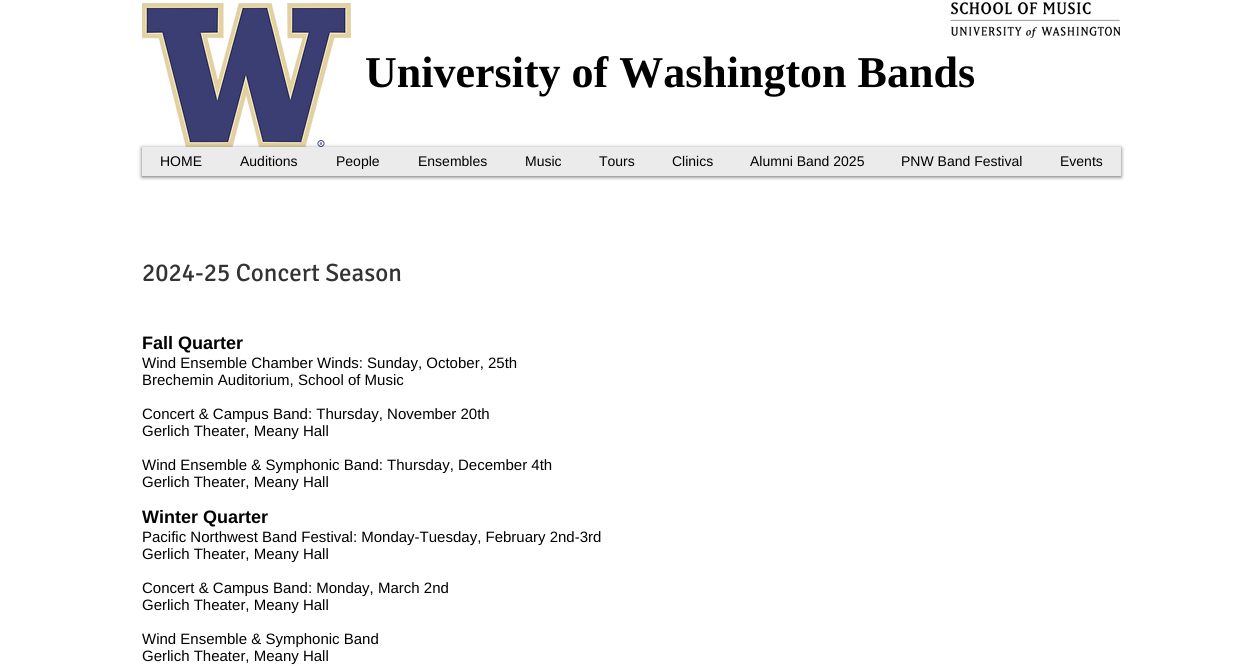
#include <cairo/cairo.h>
#include <math.h>
#include <stddef.h>

typedef struct { double x, y; const char *s; } line_t;
static cairo_t *cr;

static void rgb(unsigned color)
{
	cairo_set_source_rgb(cr, (color >> 16) / 255.0, (color >> 8 & 255) / 255.0, (color & 255) / 255.0);
}

static void rrect(double x, double y, double w, double h, double r)
{
	cairo_new_sub_path(cr);
	cairo_arc(cr, x + w - r, y + h - r, r, 0, M_PI / 2);
	cairo_arc(cr, x + r, y + h - r, r, M_PI / 2, M_PI);
	cairo_arc(cr, x + r, y + r, r, M_PI, 1.5 * M_PI);
	cairo_arc(cr, x + w - r, y + r, r, 1.5 * M_PI, 2 * M_PI);
	cairo_close_path(cr);
}

static void soft_shadow(double x, double y, double w, double h, double r, double blur, double alpha)
{
	cairo_push_group_with_content(cr, CAIRO_CONTENT_ALPHA);
	cairo_set_operator(cr, CAIRO_OPERATOR_SOURCE);
	for (int i = 15; i >= -15 && fmin(w, h) + blur * i / 3 > 0; i -= 2) {
		double e = blur * i / 6;
		cairo_set_source_rgba(cr, 0, 0, 0, alpha * erfc((i - 1) / 8.5) / 2);
		rrect(x - e, y - e, w + 2 * e, h + 2 * e, fmax(0, fmin(r + e + blur * .6, fmin(w, h) / 2 + e)));
		cairo_fill(cr);
	}
	cairo_pattern_t *soft = cairo_pop_group(cr);
	cairo_mask(cr, soft);
	cairo_pattern_destroy(soft);
}

static void image(const char *path, double x, double y, double w, double h)
{
	cairo_surface_t *image = cairo_image_surface_create_from_png(path);
	cairo_save(cr);
	cairo_set_source_surface(cr, image, x, y);
	cairo_rectangle(cr, x, y, w, h);
	cairo_fill(cr);
	cairo_restore(cr);
	cairo_surface_destroy(image);
}

int main(void) {
	cairo_surface_t *surface = cairo_image_surface_create(CAIRO_FORMAT_RGB24, 1259, 666);
	cr = cairo_create(surface);
	cairo_font_options_t *options = cairo_font_options_create();
	cairo_font_options_set_hint_metrics(options, CAIRO_HINT_METRICS_OFF);
	cairo_font_options_set_hint_style(options, CAIRO_HINT_STYLE_NONE);
	cairo_set_font_options(cr, options);
	cairo_set_miter_limit(cr, 4);
	rgb(0xffffff);
	cairo_paint(cr);
	image("img/1.png", 142, 3, 209, 144);
	image("img/2.png", 950, 2, 170, 36);
	rgb(0x000000);
	soft_shadow(142, 148, 979, 29, 0, 2, 0.6);
	rgb(0xebebeb);
	cairo_rectangle(cr, 142, 147, 979, 29);
	cairo_fill(cr);
	cairo_select_font_face(cr, "Liberation Serif", CAIRO_FONT_SLANT_NORMAL, CAIRO_FONT_WEIGHT_BOLD);
	cairo_set_font_size(cr, 44);
	rgb(0x000000);
	cairo_move_to(cr, 365, 87);
	cairo_show_text(cr, "University of Washington Bands");
	cairo_select_font_face(cr, "Liberation Sans", CAIRO_FONT_SLANT_NORMAL, CAIRO_FONT_WEIGHT_NORMAL);
	cairo_set_font_size(cr, 14);
	{
		static const line_t items[] = {
			{160, 166, "HOME"},
			{240, 166, "Auditions"},
			{336, 166, "People"},
			{418, 166, "Ensembles"},
			{525, 166, "Music"},
			{599, 166, "Tours"},
			{672, 166, "Clinics"},
			{750, 166, "Alumni Band 2025"},
			{901, 166, "PNW Band Festival"},
			{1060, 166, "Events"},
		};
		for (size_t i = 0; i < sizeof items / sizeof *items; i++) {
			cairo_move_to(cr, items[i].x, items[i].y);
			cairo_show_text(cr, items[i].s);
		}
	}
	cairo_select_font_face(cr, "Signika", CAIRO_FONT_SLANT_NORMAL, CAIRO_FONT_WEIGHT_NORMAL);
	cairo_set_font_size(cr, 25);
	rgb(0x333333);
	cairo_move_to(cr, 142, 281);
	cairo_show_text(cr, "2024-25 Concert Season");
	cairo_select_font_face(cr, "Liberation Sans", CAIRO_FONT_SLANT_NORMAL, CAIRO_FONT_WEIGHT_BOLD);
	cairo_set_font_size(cr, 18);
	rgb(0x000000);
	cairo_move_to(cr, 142, 349);
	cairo_show_text(cr, "Fall Quarter");
	cairo_select_font_face(cr, "Liberation Sans", CAIRO_FONT_SLANT_NORMAL, CAIRO_FONT_WEIGHT_NORMAL);
	cairo_set_font_size(cr, 15);
	{
		static const line_t items[] = {
			{142, 368, "Wind Ensemble Chamber Winds: Sunday, October, 25th"},
			{142, 385, "Brechemin Auditorium, School of Music"},
			{142, 419, "Concert & Campus Band: Thursday, November 20th"},
			{142, 436, "Gerlich Theater, Meany Hall"},
			{142, 470, "Wind Ensemble & Symphonic Band: Thursday, December 4th"},
			{142, 487, "Gerlich Theater, Meany Hall"},
		};
		for (size_t i = 0; i < sizeof items / sizeof *items; i++) {
			cairo_move_to(cr, items[i].x, items[i].y);
			cairo_show_text(cr, items[i].s);
		}
	}
	cairo_select_font_face(cr, "Liberation Sans", CAIRO_FONT_SLANT_NORMAL, CAIRO_FONT_WEIGHT_BOLD);
	cairo_set_font_size(cr, 18);
	cairo_move_to(cr, 142, 523);
	cairo_show_text(cr, "Winter Quarter");
	cairo_select_font_face(cr, "Liberation Sans", CAIRO_FONT_SLANT_NORMAL, CAIRO_FONT_WEIGHT_NORMAL);
	cairo_set_font_size(cr, 15);
	{
		static const line_t items[] = {
			{142, 542, "Pacific Northwest Band Festival: Monday-Tuesday, February 2nd-3rd"},
			{142, 559, "Gerlich Theater, Meany Hall"},
			{142, 593, "Concert & Campus Band: Monday, March 2nd"},
			{142, 610, "Gerlich Theater, Meany Hall"},
			{142, 644, "Wind Ensemble & Symphonic Band"},
			{142, 661, "Gerlich Theater, Meany Hall"},
		};
		for (size_t i = 0; i < sizeof items / sizeof *items; i++) {
			cairo_move_to(cr, items[i].x, items[i].y);
			cairo_show_text(cr, items[i].s);
		}
	}
	cairo_surface_write_to_png(surface, "page.png");
	cairo_font_options_destroy(options);
	cairo_destroy(cr);
	cairo_surface_destroy(surface);
	return 0;
}
